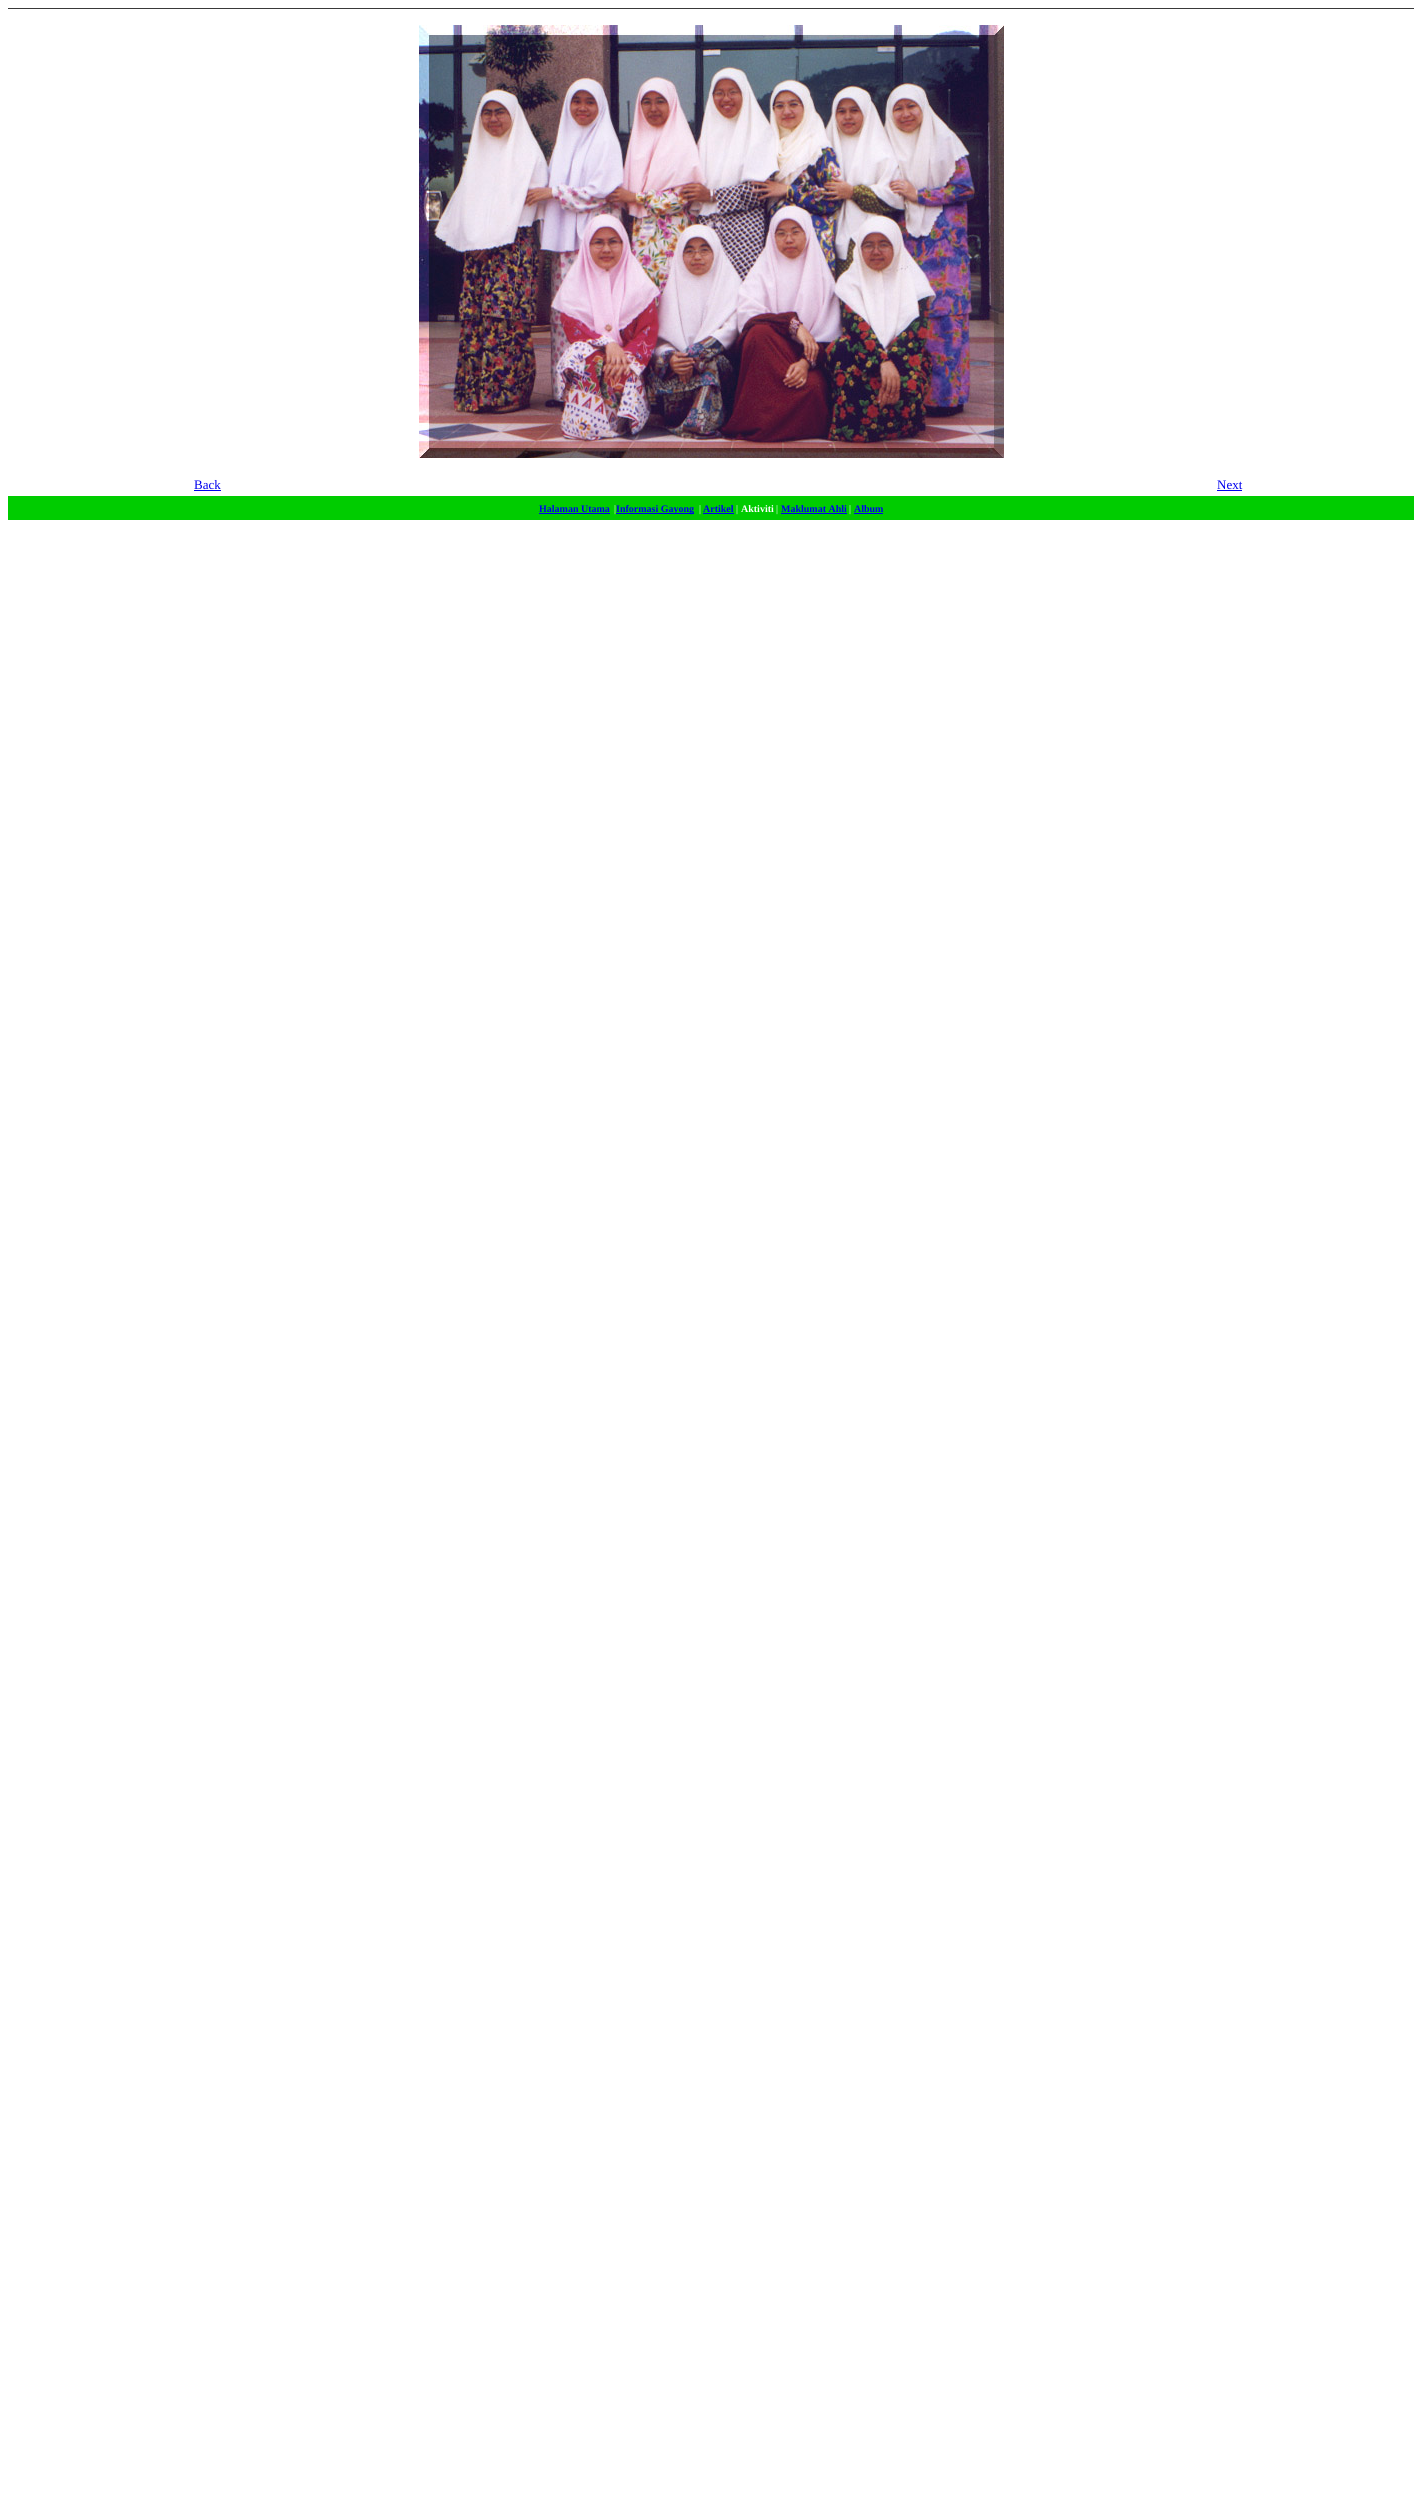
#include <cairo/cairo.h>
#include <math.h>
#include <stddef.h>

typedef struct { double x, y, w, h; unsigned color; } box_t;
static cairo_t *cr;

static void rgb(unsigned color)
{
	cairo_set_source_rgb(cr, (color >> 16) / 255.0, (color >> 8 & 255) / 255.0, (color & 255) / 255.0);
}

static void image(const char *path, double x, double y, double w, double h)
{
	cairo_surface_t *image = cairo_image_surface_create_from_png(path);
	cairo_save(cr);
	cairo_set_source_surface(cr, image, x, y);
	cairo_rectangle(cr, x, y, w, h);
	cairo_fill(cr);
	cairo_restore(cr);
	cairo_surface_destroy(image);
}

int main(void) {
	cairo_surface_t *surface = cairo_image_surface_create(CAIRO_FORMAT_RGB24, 1422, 2509);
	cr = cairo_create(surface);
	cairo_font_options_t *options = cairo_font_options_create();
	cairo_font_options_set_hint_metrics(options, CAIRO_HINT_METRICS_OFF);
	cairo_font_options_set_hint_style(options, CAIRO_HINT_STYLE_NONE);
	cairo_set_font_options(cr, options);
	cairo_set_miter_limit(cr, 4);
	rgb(0xffffff);
	cairo_paint(cr);
	rgb(0x393939);
	cairo_rectangle(cr, 8, 8, 1406, 1);
	cairo_fill(cr);
	image("img/1.png", 419, 25, 585, 433);
	{
		static const box_t items[] = {
			{194, 490, 27, 1, 0x0000ee},
			{1217, 490, 25, 1, 0x0000ee},
			{8, 496, 1406, 24, 0x00cc00},
			{539, 513, 71, 1, 0x0000ee},
			{616, 513, 78, 1, 0x0000ee},
			{703, 513, 31, 1, 0x0000ee},
			{781, 513, 66, 1, 0x0000ee},
			{854, 513, 29, 1, 0x0000ee},
		};
		for (size_t i = 0; i < sizeof items / sizeof *items; i++) {
			rgb(items[i].color);
			cairo_rectangle(cr, items[i].x, items[i].y, items[i].w, items[i].h);
			cairo_fill(cr);
		}
	}
	cairo_select_font_face(cr, "Liberation Serif", CAIRO_FONT_SLANT_NORMAL, CAIRO_FONT_WEIGHT_NORMAL);
	cairo_set_font_size(cr, 13);
	cairo_move_to(cr, 194, 489);
	cairo_show_text(cr, "Back");
	cairo_move_to(cr, 1217, 489);
	cairo_show_text(cr, "Next");
	cairo_select_font_face(cr, "Liberation Serif", CAIRO_FONT_SLANT_NORMAL, CAIRO_FONT_WEIGHT_BOLD);
	cairo_set_font_size(cr, 10);
	cairo_move_to(cr, 539, 512);
	cairo_show_text(cr, "Halaman Utama");
	cairo_select_font_face(cr, "Liberation Serif", CAIRO_FONT_SLANT_NORMAL, CAIRO_FONT_WEIGHT_NORMAL);
	rgb(0xffffff);
	cairo_move_to(cr, 614, 512);
	cairo_show_text(cr, "|");
	cairo_select_font_face(cr, "Liberation Serif", CAIRO_FONT_SLANT_NORMAL, CAIRO_FONT_WEIGHT_BOLD);
	rgb(0x0000ee);
	cairo_move_to(cr, 616, 512);
	cairo_show_text(cr, "Informasi Gayong");
	cairo_select_font_face(cr, "Liberation Serif", CAIRO_FONT_SLANT_NORMAL, CAIRO_FONT_WEIGHT_NORMAL);
	rgb(0xffffff);
	cairo_move_to(cr, 699, 512);
	cairo_show_text(cr, "|");
	cairo_select_font_face(cr, "Liberation Serif", CAIRO_FONT_SLANT_NORMAL, CAIRO_FONT_WEIGHT_BOLD);
	rgb(0x0000ee);
	cairo_move_to(cr, 703, 512);
	cairo_show_text(cr, "Artikel");
	cairo_select_font_face(cr, "Liberation Serif", CAIRO_FONT_SLANT_NORMAL, CAIRO_FONT_WEIGHT_NORMAL);
	rgb(0xffffff);
	cairo_move_to(cr, 736, 512);
	cairo_show_text(cr, "|");
	cairo_select_font_face(cr, "Liberation Serif", CAIRO_FONT_SLANT_NORMAL, CAIRO_FONT_WEIGHT_BOLD);
	cairo_move_to(cr, 741, 512);
	cairo_show_text(cr, "Aktiviti");
	cairo_select_font_face(cr, "Liberation Serif", CAIRO_FONT_SLANT_NORMAL, CAIRO_FONT_WEIGHT_NORMAL);
	cairo_move_to(cr, 776, 512);
	cairo_show_text(cr, "|");
	cairo_select_font_face(cr, "Liberation Serif", CAIRO_FONT_SLANT_NORMAL, CAIRO_FONT_WEIGHT_BOLD);
	rgb(0x0000ee);
	cairo_move_to(cr, 781, 512);
	cairo_show_text(cr, "Maklumat Ahli");
	cairo_select_font_face(cr, "Liberation Serif", CAIRO_FONT_SLANT_NORMAL, CAIRO_FONT_WEIGHT_NORMAL);
	rgb(0xffffff);
	cairo_move_to(cr, 849, 512);
	cairo_show_text(cr, "|");
	cairo_select_font_face(cr, "Liberation Serif", CAIRO_FONT_SLANT_NORMAL, CAIRO_FONT_WEIGHT_BOLD);
	rgb(0x0000ee);
	cairo_move_to(cr, 854, 512);
	cairo_show_text(cr, "Album");
	cairo_surface_write_to_png(surface, "page.png");
	cairo_font_options_destroy(options);
	cairo_destroy(cr);
	cairo_surface_destroy(surface);
	return 0;
}
